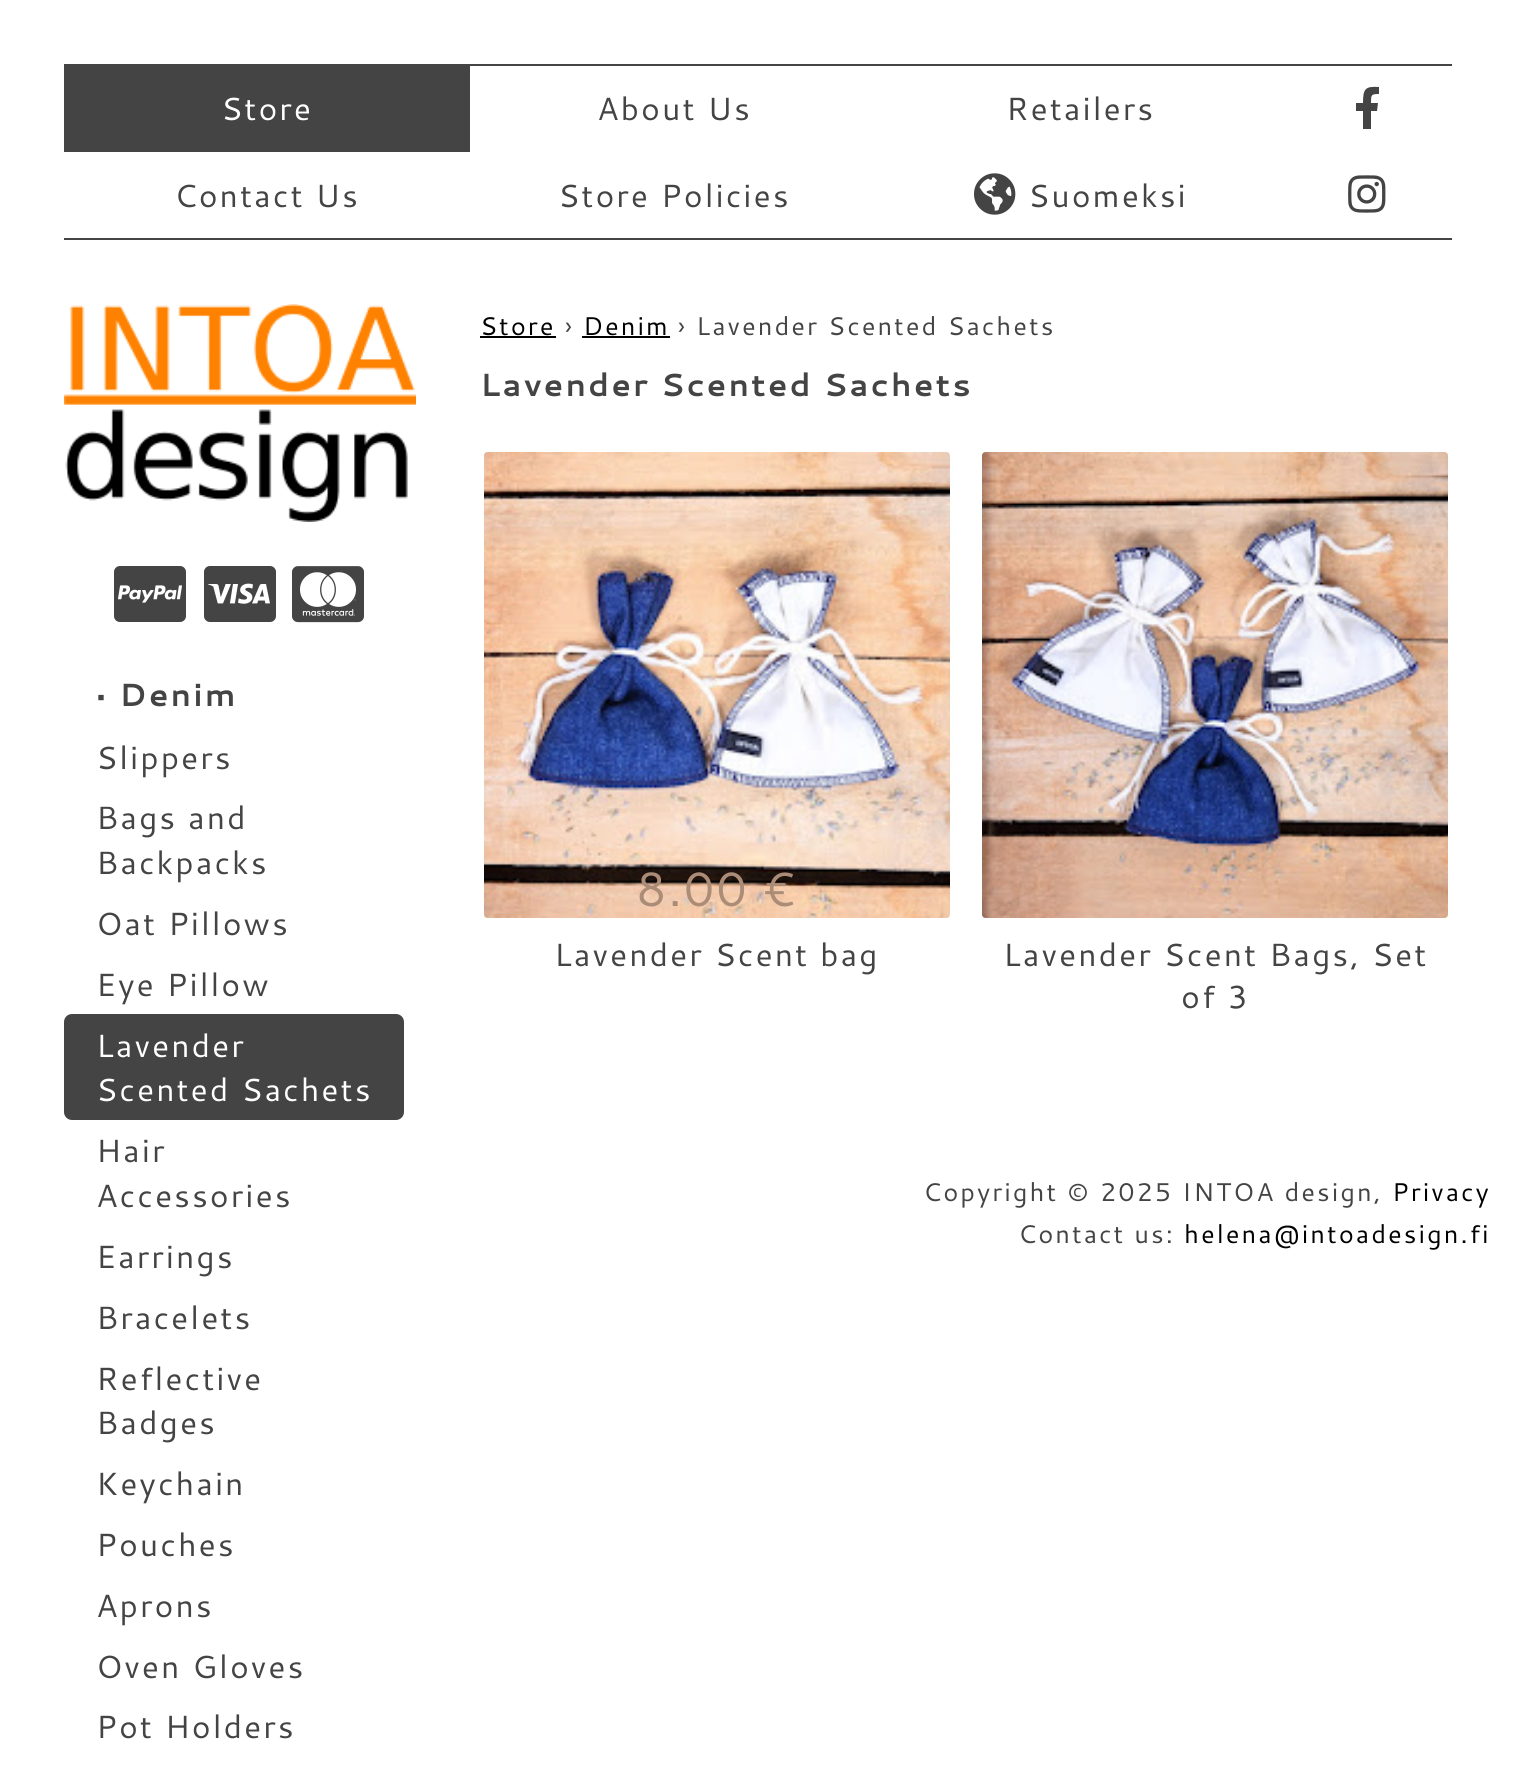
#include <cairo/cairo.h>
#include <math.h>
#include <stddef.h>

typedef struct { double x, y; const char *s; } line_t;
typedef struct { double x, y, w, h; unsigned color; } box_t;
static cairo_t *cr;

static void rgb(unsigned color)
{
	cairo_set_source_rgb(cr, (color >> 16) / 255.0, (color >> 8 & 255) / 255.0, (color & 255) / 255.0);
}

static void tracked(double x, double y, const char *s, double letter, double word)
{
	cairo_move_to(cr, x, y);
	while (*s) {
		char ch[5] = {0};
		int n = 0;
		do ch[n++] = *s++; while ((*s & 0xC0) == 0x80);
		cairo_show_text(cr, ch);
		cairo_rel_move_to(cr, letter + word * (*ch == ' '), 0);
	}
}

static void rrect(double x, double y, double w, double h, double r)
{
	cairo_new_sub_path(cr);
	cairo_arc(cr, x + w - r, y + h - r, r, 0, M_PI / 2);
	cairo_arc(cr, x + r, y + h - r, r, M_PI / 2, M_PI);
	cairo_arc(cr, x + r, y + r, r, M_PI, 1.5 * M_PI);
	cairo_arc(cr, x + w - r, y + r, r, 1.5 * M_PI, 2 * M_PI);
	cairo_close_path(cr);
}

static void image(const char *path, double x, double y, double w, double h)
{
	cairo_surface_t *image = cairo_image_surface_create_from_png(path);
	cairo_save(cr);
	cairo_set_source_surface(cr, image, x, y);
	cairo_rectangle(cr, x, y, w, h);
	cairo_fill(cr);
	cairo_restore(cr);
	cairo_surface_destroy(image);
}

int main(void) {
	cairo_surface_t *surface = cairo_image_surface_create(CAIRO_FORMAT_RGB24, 1516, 1772);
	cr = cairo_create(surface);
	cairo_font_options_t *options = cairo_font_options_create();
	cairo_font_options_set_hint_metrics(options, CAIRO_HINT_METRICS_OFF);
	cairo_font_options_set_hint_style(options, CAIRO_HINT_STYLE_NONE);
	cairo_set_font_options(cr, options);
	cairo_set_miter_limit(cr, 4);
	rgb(0xffffff);
	cairo_paint(cr);
	{
		static const box_t items[] = {
			{64, 64, 1388, 2, 0x444444},
			{64, 238, 1388, 2, 0x444444},
			{64, 66, 406, 86, 0x444444},
		};
		for (size_t i = 0; i < sizeof items / sizeof *items; i++) {
			rgb(items[i].color);
			cairo_rectangle(cr, items[i].x, items[i].y, items[i].w, items[i].h);
			cairo_fill(cr);
		}
	}
	image("img/1.png", 974, 173, 42, 42);
	cairo_new_path(cr);
	cairo_move_to(cr, 1377, 111);
	cairo_line_to(cr, 1371, 111);
	cairo_line_to(cr, 1371, 129);
	cairo_line_to(cr, 1363, 129);
	cairo_line_to(cr, 1363, 111);
	cairo_line_to(cr, 1356, 111);
	cairo_line_to(cr, 1356, 103);
	cairo_line_to(cr, 1363, 103);
	cairo_curve_to(cr, 1363, 89, 1365, 86, 1379, 87);
	cairo_line_to(cr, 1379, 94);
	cairo_curve_to(cr, 1371, 94, 1371, 95, 1371, 103);
	cairo_line_to(cr, 1378, 103);
	cairo_close_path(cr);
	cairo_fill(cr);
	image("img/2.png", 1348, 175, 38, 38);
	image("img/3.png", 64, 304, 352, 218);
	image("img/4.png", 114, 566, 72, 56);
	image("img/5.png", 204, 566, 72, 56);
	image("img/6.png", 292, 566, 72, 57);
	rrect(64, 1014, 340, 106, 8);
	cairo_fill(cr);
	rgb(0x000000);
	cairo_rectangle(cr, 480, 336, 76, 2);
	cairo_fill(cr);
	cairo_rectangle(cr, 582, 336, 88, 2);
	cairo_fill(cr);
	image("img/7.png", 484, 452, 466, 466);
	image("img/8.png", 982, 452, 466, 466);
	cairo_select_font_face(cr, "Cantarell", CAIRO_FONT_SLANT_NORMAL, CAIRO_FONT_WEIGHT_NORMAL);
	cairo_set_font_size(cr, 32);
	rgb(0xffffff);
	tracked(221, 120, "Store", 2, 0);
	rgb(0x444444);
	{
		static const line_t items[] = {
			{597, 120, "About Us"},
			{1006, 120, "Retailers"},
			{174, 207, "Contact Us"},
			{558, 207, "Store Policies"},
			{1028, 207, "Suomeksi"},
		};
		for (size_t i = 0; i < sizeof items / sizeof *items; i++) {
			tracked(items[i].x, items[i].y, items[i].s, 2, 0);
		}
	}
	cairo_select_font_face(cr, "Cantarell", CAIRO_FONT_SLANT_NORMAL, CAIRO_FONT_WEIGHT_BOLD);
	tracked(96, 709, "•", 2, 0);
	tracked(119, 706, "Denim", 2, 0);
	cairo_select_font_face(cr, "Cantarell", CAIRO_FONT_SLANT_NORMAL, CAIRO_FONT_WEIGHT_NORMAL);
	{
		static const line_t items[] = {
			{96, 769, "Slippers"},
			{96, 829, "Bags and"},
			{96, 874, "Backpacks"},
			{96, 935, "Oat Pillows"},
			{96, 996, "Eye Pillow"},
		};
		for (size_t i = 0; i < sizeof items / sizeof *items; i++) {
			tracked(items[i].x, items[i].y, items[i].s, 2, 0);
		}
	}
	rgb(0xffffff);
	tracked(96, 1057, "Lavender", 2, 0);
	tracked(96, 1101, "Scented Sachets", 2, 0);
	rgb(0x444444);
	{
		static const line_t items[] = {
			{96, 1162, "Hair"},
			{96, 1207, "Accessories"},
			{96, 1268, "Earrings"},
			{96, 1329, "Bracelets"},
			{96, 1390, "Reflective"},
			{96, 1434, "Badges"},
			{96, 1495, "Keychain"},
			{96, 1556, "Pouches"},
			{96, 1617, "Aprons"},
			{96, 1678, "Oven Gloves"},
			{96, 1738, "Pot Holders"},
		};
		for (size_t i = 0; i < sizeof items / sizeof *items; i++) {
			tracked(items[i].x, items[i].y, items[i].s, 2, 0);
		}
	}
	cairo_set_font_size(cr, 25.6);
	rgb(0x000000);
	tracked(480, 335, "Store", 2, 0);
	rgb(0x444444);
	tracked(565, 335, "›", 2, 0);
	rgb(0x000000);
	tracked(583, 335, "Denim", 2, 0);
	rgb(0x444444);
	tracked(678, 335, "› Lavender Scented Sachets", 2, 0);
	cairo_select_font_face(cr, "Cantarell", CAIRO_FONT_SLANT_NORMAL, CAIRO_FONT_WEIGHT_BOLD);
	cairo_set_font_size(cr, 32);
	tracked(480, 396, "Lavender Scented Sachets", 2, 0);
	cairo_select_font_face(cr, "Cantarell", CAIRO_FONT_SLANT_NORMAL, CAIRO_FONT_WEIGHT_NORMAL);
	cairo_set_font_size(cr, 48);
	rgb(0xab8c77);
	tracked(636, 906, "8.00", 2, 0);
	tracked(764, 906, "€", 2, 0);
	cairo_set_font_size(cr, 32);
	rgb(0x444444);
	{
		static const line_t items[] = {
			{554, 966, "Lavender Scent bag"},
			{1003, 966, "Lavender Scent Bags, Set"},
			{1181, 1008, "of 3"},
		};
		for (size_t i = 0; i < sizeof items / sizeof *items; i++) {
			tracked(items[i].x, items[i].y, items[i].s, 2, 0);
		}
	}
	cairo_set_font_size(cr, 25.6);
	tracked(923, 1201, "Copyright © 2025 INTOA design,", 2, 0);
	rgb(0x000000);
	tracked(1392, 1201, "Privacy", 2, 0);
	rgb(0x444444);
	tracked(1018, 1243, "Contact us:", 2, 0);
	rgb(0x000000);
	tracked(1184, 1243, "helena@intoadesign.fi", 2, 0);
	cairo_surface_write_to_png(surface, "page.png");
	cairo_font_options_destroy(options);
	cairo_destroy(cr);
	cairo_surface_destroy(surface);
	return 0;
}
